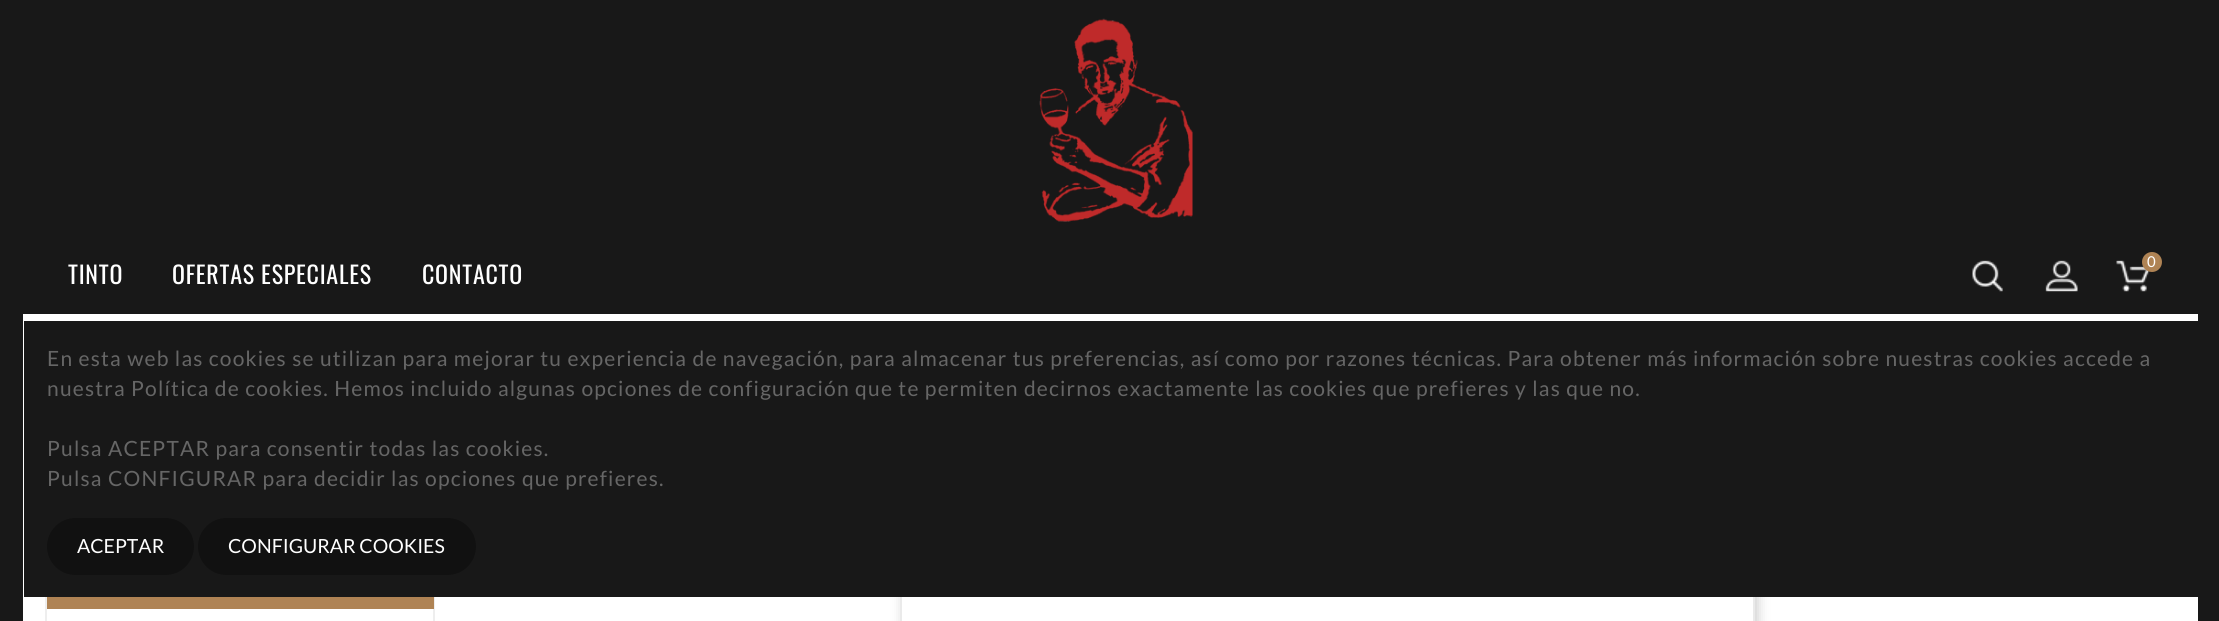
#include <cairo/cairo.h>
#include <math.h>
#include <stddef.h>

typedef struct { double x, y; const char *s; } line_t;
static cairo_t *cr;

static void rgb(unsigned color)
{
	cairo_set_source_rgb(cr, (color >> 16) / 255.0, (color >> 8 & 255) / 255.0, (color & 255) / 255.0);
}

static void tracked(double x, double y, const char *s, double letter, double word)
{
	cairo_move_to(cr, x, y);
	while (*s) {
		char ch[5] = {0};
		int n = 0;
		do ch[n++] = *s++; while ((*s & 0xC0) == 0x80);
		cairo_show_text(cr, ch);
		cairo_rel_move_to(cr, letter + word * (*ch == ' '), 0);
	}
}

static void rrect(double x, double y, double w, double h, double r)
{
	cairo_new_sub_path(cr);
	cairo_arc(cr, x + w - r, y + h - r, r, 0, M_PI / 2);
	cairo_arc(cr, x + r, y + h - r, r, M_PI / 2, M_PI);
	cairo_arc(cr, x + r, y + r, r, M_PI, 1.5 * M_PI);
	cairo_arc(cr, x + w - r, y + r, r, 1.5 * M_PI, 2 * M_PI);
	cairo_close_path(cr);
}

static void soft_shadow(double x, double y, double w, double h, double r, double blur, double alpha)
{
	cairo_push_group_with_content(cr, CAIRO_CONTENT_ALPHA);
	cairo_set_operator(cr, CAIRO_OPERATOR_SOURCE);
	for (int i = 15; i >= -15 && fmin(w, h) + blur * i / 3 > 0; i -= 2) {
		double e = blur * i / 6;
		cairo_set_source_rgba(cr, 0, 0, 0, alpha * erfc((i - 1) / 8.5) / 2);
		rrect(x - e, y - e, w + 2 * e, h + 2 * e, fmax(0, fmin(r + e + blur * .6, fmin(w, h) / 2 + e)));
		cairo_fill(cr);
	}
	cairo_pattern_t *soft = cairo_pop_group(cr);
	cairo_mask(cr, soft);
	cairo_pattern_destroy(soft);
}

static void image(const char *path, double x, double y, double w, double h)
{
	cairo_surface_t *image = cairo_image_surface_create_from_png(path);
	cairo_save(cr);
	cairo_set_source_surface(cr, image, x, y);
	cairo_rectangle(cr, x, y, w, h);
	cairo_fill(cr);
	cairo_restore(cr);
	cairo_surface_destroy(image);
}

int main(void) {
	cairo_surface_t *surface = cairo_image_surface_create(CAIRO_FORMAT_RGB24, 2219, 621);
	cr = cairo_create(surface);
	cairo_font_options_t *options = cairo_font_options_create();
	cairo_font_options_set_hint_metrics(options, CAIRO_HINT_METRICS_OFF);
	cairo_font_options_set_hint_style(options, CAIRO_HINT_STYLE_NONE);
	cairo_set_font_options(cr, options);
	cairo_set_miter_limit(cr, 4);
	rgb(0x181818);
	cairo_paint(cr);
	image("img/1.png", 1039, 18, 154, 204);
	image("img/2.png", 1972, 260, 31, 32);
	image("img/3.png", 2045, 260, 33, 32);
	image("img/4.png", 2116, 260, 34, 32);
	rgb(0xaf8354);
	cairo_arc(cr, 2152, 262, 10, 0, 2 * M_PI);
	cairo_fill(cr);
	rgb(0xffffff);
	cairo_rectangle(cr, 23, 314, 2175, 307);
	cairo_fill(cr);
	cairo_rectangle(cr, 46, 537, 388, 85);
	rgb(0xeeeeee);
	cairo_stroke(cr);
	rgb(0xaf8354);
	cairo_rectangle(cr, 47, 597, 387, 12);
	cairo_fill(cr);
	cairo_save(cr);
	cairo_set_fill_rule(cr, CAIRO_FILL_RULE_EVEN_ODD);
	cairo_new_path(cr);
	cairo_move_to(cr, 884, 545);
	cairo_line_to(cr, 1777, 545);
	cairo_line_to(cr, 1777, 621);
	cairo_line_to(cr, 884, 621);
	cairo_close_path(cr);
	cairo_move_to(cr, 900, 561);
	cairo_line_to(cr, 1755, 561);
	cairo_line_to(cr, 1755, 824);
	cairo_line_to(cr, 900, 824);
	cairo_close_path(cr);
	cairo_clip(cr);
	rgb(0x000000);
	soft_shadow(903, 564, 855, 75, 0, 6, 0.2);
	cairo_restore(cr);
	cairo_rectangle(cr, 901, 562, 853, 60);
	rgb(0xeaeaea);
	cairo_stroke(cr);
	rgb(0x181818);
	cairo_rectangle(cr, 24, 321, 2174, 276);
	cairo_fill(cr);
	rgb(0x111111);
	rrect(47, 518, 147, 57, 28.5);
	cairo_fill(cr);
	rrect(198, 518, 278, 57, 28.5);
	cairo_fill(cr);
	cairo_select_font_face(cr, "Oswald", CAIRO_FONT_SLANT_NORMAL, CAIRO_FONT_WEIGHT_NORMAL);
	cairo_set_font_size(cr, 24);
	rgb(0xffffff);
	{
		static const line_t items[] = {
			{68, 284, "TINTO"},
			{172, 284, "OFERTAS ESPECIALES"},
			{422, 284, "CONTACTO"},
		};
		for (size_t i = 0; i < sizeof items / sizeof *items; i++) {
			tracked(items[i].x, items[i].y, items[i].s, 0.75, 0);
		}
	}
	cairo_select_font_face(cr, "Lato", CAIRO_FONT_SLANT_NORMAL, CAIRO_FONT_WEIGHT_NORMAL);
	cairo_set_font_size(cr, 15);
	tracked(2147, 267, "0", 0.75, 0);
	cairo_set_font_size(cr, 21);
	rgb(0x666666);
	{
		static const line_t items[] = {
			{47, 366, "En esta web las cookies se utilizan para mejorar tu experiencia de navegación, para almacenar tus preferencias, así como por razones técnicas. Para obtener más información sobre nuestras cookies accede a"},
			{47, 396, "nuestra Política de cookies. Hemos incluido algunas opciones de configuración que te permiten decirnos exactamente las cookies que prefieres y las que no."},
			{47, 456, "Pulsa ACEPTAR para consentir todas las cookies."},
			{47, 486, "Pulsa CONFIGURAR para decidir las opciones que prefieres."},
		};
		for (size_t i = 0; i < sizeof items / sizeof *items; i++) {
			tracked(items[i].x, items[i].y, items[i].s, 1.2, 0);
		}
	}
	cairo_set_font_size(cr, 19.5);
	rgb(0xffffff);
	cairo_move_to(cr, 77, 553);
	cairo_show_text(cr, "ACEPTAR");
	cairo_move_to(cr, 228, 553);
	cairo_show_text(cr, "CONFIGURAR COOKIES");
	cairo_surface_write_to_png(surface, "page.png");
	cairo_font_options_destroy(options);
	cairo_destroy(cr);
	cairo_surface_destroy(surface);
	return 0;
}
